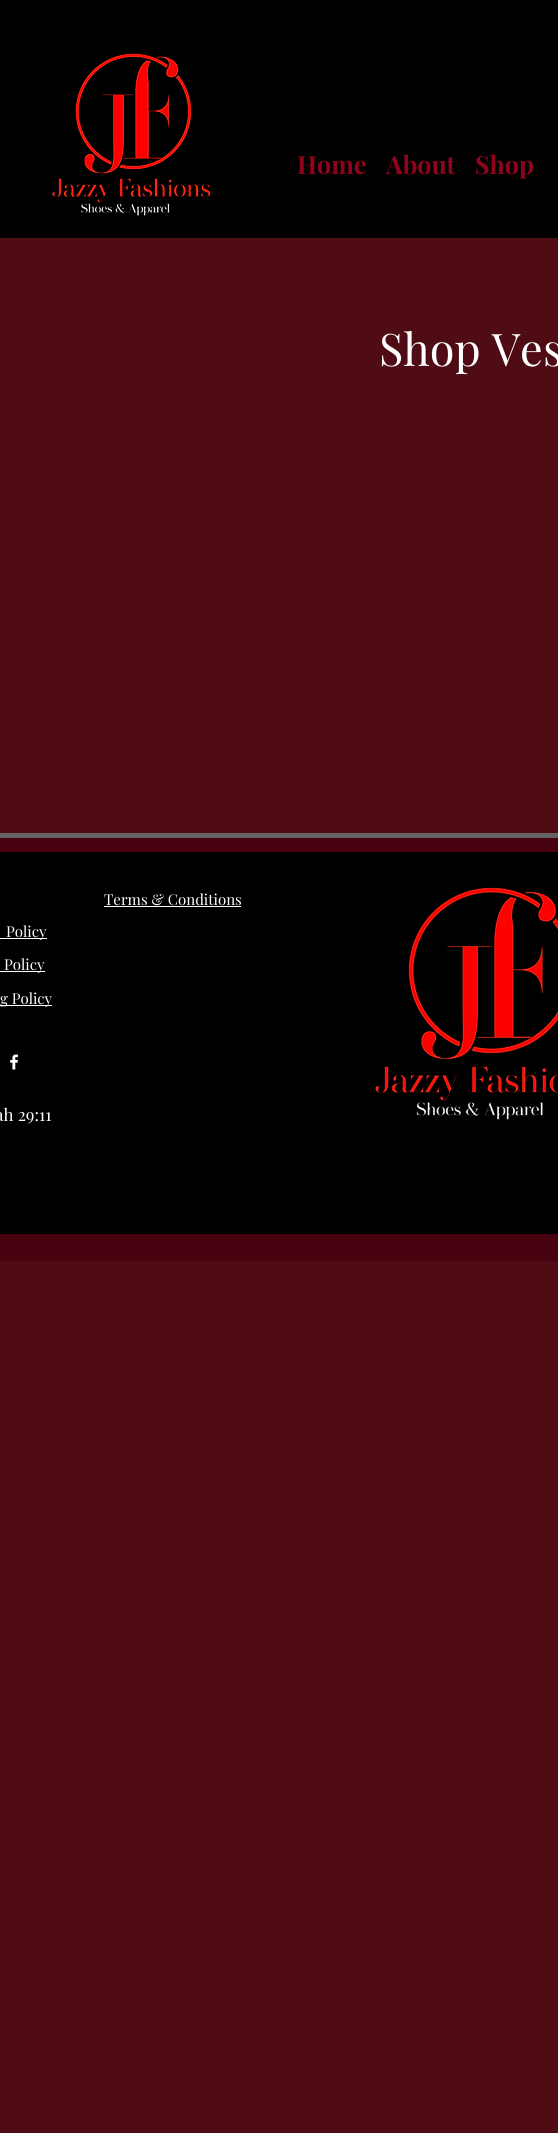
import math
import cairocffi as cairo

surface = cairo.ImageSurface(cairo.FORMAT_RGB24, 558, 2133)
ctx = cairo.Context(surface)
options = cairo.FontOptions()
options.set_hint_metrics(cairo.HINT_METRICS_OFF)
options.set_hint_style(cairo.HINT_STYLE_NONE)
ctx.set_font_options(options)
ctx.set_miter_limit(4)


def rgb(r, g, b):
    ctx.set_source_rgb(r / 255, g / 255, b / 255)


def face(family, size, italic, bold):
    ctx.select_font_face(family, cairo.FONT_SLANT_ITALIC if italic else cairo.FONT_SLANT_NORMAL, cairo.FONT_WEIGHT_BOLD if bold else cairo.FONT_WEIGHT_NORMAL)
    ctx.set_font_size(size)


def label(x, y, s):
    ctx.move_to(x, y)
    ctx.show_text(s)


def rect(x, y, w, h):
    ctx.rectangle(x, y, w, h)
    ctx.fill()


def image(path, x, y, w, h):
    ctx.save()
    ctx.set_source_surface(cairo.ImageSurface.create_from_png(path), x, y)
    ctx.rectangle(x, y, w, h)
    ctx.fill()
    ctx.restore()


rgb(80, 12, 20)
ctx.paint()
rgb(0, 0, 0)
rect(0, 0, 558, 238)
image('image0.png', 52, 53, 159, 163)
face('Playfair Display', 25, 0, 1)
rgb(145, 3, 27)
label(297, 174, 'Home')
label(386, 174, 'About')
label(475, 174, 'Shop')
face('Playfair Display', 45, 0, 0)
rgb(255, 255, 255)
label(379, 366, 'Shop Ves')
rgb(72, 1, 14)
rect(0, 838, 558, 423)
rgb(99, 99, 99)
rect(0, 833, 558, 5)
rgb(0, 0, 0)
rect(0, 852, 558, 382)
face('Playfair Display', 15, 0, 0)
rgb(255, 255, 255)
label(104, 905, 'Terms & Conditions')
rect(104, 906, 137, 1)
image('image1.png', 375, 887, 183, 233)
rect(0, 938, 47, 1)
label(6, 937, 'Policy')
rect(0, 971, 45, 1)
label(4, 970, 'Policy')
rect(0, 1005, 52, 1)
label(0, 1004, 'g Policy')
image('image2.png', 10, 1054, 9, 16)
face('Playfair Display', 17, 0, 0)
label(-5, 1121, 'ah 29:11')
surface.write_to_png('render.png')
